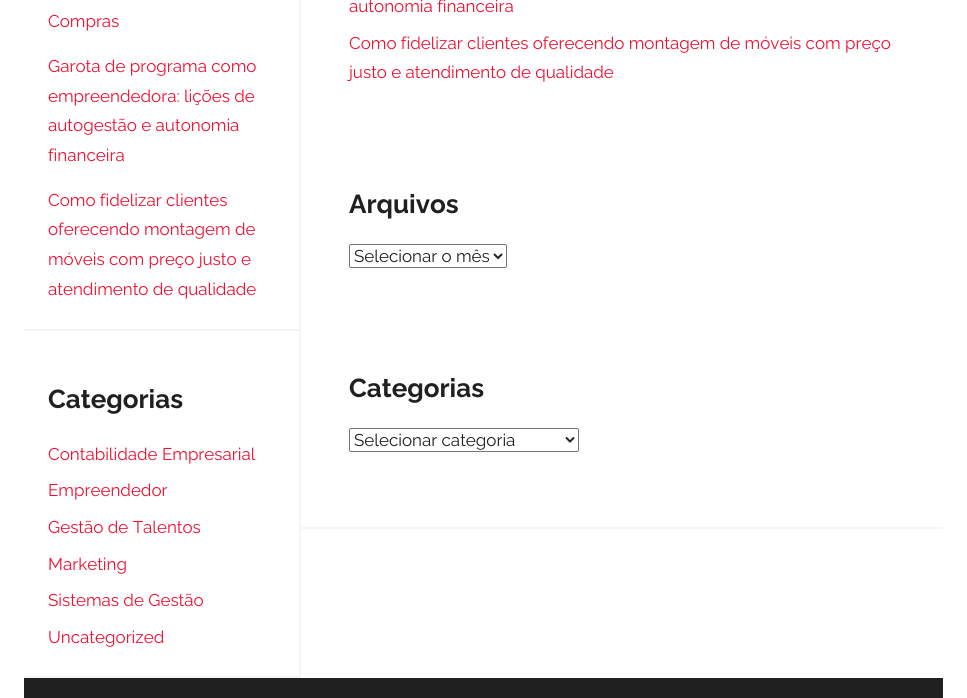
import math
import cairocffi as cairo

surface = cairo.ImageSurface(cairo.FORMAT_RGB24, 967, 698)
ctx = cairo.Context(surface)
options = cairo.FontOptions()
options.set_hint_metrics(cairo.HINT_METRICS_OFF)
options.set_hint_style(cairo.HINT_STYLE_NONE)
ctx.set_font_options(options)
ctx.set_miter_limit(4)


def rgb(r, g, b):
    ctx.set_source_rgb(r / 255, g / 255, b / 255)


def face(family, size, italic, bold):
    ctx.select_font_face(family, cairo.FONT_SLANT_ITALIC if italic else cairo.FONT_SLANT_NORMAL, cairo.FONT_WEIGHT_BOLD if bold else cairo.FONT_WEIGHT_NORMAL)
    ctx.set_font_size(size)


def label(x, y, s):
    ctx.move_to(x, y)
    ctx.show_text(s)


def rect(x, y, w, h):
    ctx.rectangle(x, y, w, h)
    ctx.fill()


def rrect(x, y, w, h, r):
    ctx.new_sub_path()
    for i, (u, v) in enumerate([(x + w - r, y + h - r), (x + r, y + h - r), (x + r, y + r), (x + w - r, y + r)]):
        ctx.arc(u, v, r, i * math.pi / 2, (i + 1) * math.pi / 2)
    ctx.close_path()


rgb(255, 255, 255)
ctx.paint()
rgb(245, 245, 245)
rect(299, 0, 2, 678)
rect(24, 329, 275, 2)
face('Raleway', 17, 0, 0)
rgb(238, 17, 51)
label(48, 27, 'Compras')
label(48, 72, 'Garota de programa como')
label(48, 102, 'empreendedora: lições de')
label(48, 131, 'autogestão e autonomia')
label(48, 161, 'financeira')
label(48, 206, 'Como fidelizar clientes')
label(48, 235, 'oferecendo montagem de')
label(48, 265, 'móveis com preço justo e')
label(48, 295, 'atendimento de qualidade')
rgb(245, 245, 245)
rect(24, 676, 275, 2)
face('Raleway', 26, 0, 1)
rgb(32, 32, 32)
label(48, 408, 'Categorias')
face('Raleway', 17, 0, 0)
rgb(238, 17, 51)
label(48, 460, 'Contabilidade Empresarial')
label(48, 496, 'Empreendedor')
label(48, 533, 'Gestão de Talentos')
label(48, 570, 'Marketing')
label(48, 606, 'Sistemas de Gestão')
label(48, 643, 'Uncategorized')
rgb(245, 245, 245)
rect(301, 527, 642, 2)
rgb(238, 17, 51)
label(349, 12, 'autonomia financeira')
label(349, 49, 'Como fidelizar clientes oferecendo montagem de móveis com preço')
label(349, 78, 'justo e atendimento de qualidade')
face('Raleway', 26, 0, 1)
rgb(32, 32, 32)
label(349, 213, 'Arquivos')
rrect(349.5, 244.5, 157, 23, 1.5)
rgb(118, 118, 118)
ctx.set_line_width(1)
ctx.stroke()
ctx.new_path()
ctx.move_to(494, 254)
ctx.line_to(498, 258)
ctx.line_to(502, 254)
rgb(32, 32, 32)
ctx.set_line_width(2)
ctx.stroke()
face('Raleway', 17, 0, 0)
label(354, 262, 'Selecionar o mês')
face('Raleway', 26, 0, 1)
label(349, 397, 'Categorias')
rrect(349.5, 428.5, 229, 23, 1.5)
rgb(118, 118, 118)
ctx.set_line_width(1)
ctx.stroke()
ctx.new_path()
ctx.move_to(566, 437.5)
ctx.line_to(570, 441.5)
ctx.line_to(574, 437.5)
rgb(32, 32, 32)
ctx.set_line_width(2)
ctx.stroke()
face('Raleway', 17, 0, 0)
label(354, 446, 'Selecionar categoria')
rect(24, 678, 919, 20)
surface.write_to_png('render.png')
